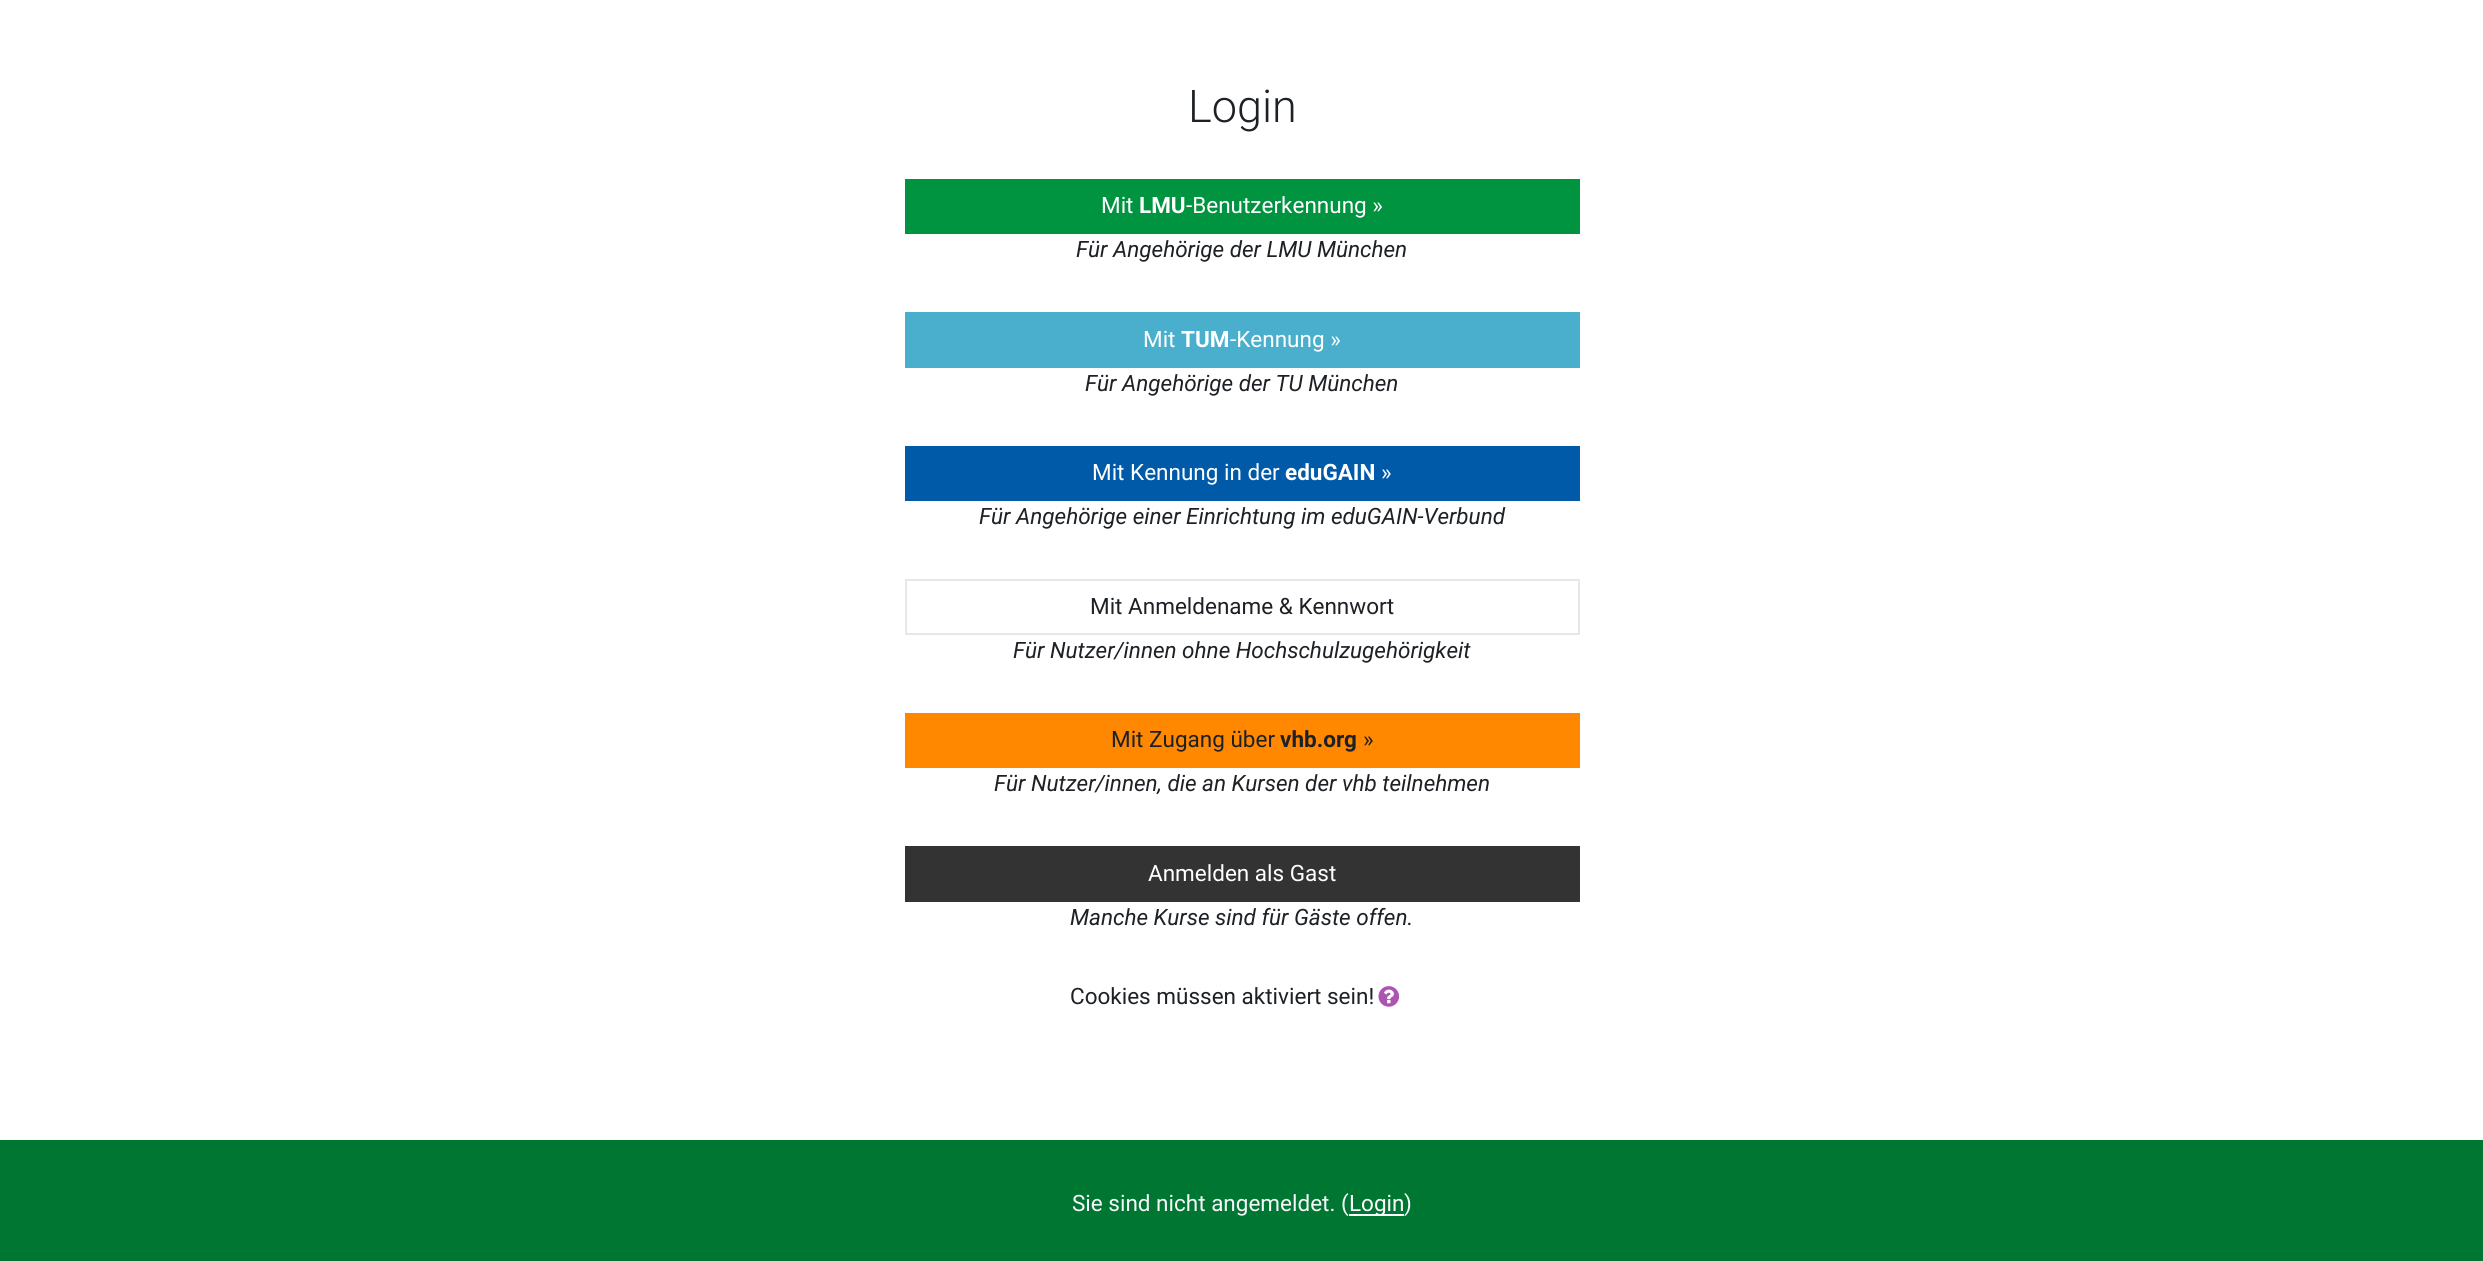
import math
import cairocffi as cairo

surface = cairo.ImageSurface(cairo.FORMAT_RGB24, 2483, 1261)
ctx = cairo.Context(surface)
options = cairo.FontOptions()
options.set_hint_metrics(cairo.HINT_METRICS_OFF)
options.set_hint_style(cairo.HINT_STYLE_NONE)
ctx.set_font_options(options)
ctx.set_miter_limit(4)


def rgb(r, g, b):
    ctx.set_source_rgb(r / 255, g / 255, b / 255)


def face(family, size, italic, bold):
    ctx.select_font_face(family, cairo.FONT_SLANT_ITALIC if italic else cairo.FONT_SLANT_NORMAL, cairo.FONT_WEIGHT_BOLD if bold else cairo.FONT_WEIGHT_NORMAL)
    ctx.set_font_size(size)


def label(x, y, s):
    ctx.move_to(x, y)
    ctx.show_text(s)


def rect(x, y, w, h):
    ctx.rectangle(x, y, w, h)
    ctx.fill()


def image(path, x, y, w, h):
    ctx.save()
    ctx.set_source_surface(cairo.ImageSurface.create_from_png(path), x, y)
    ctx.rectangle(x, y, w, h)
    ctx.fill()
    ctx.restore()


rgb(255, 255, 255)
ctx.paint()
face('Roboto Light', 45, 0, 0)
rgb(29, 33, 37)
label(1188, 122, 'Login')
rgb(0, 148, 64)
rect(905, 179, 675, 55)
face('Roboto', 22.5, 0, 0)
rgb(255, 255, 255)
label(1101, 213, 'Mit')
face('Roboto', 22.5, 0, 1)
label(1139, 213, 'LMU')
face('Roboto', 22.5, 0, 0)
label(1186, 213, '-Benutzerkennung »')
face('Roboto', 22.5, 1, 0)
rgb(29, 33, 37)
label(1076, 257, 'Für Angehörige der LMU München')
rgb(73, 175, 205)
rect(905, 312, 675, 56)
face('Roboto', 22.5, 0, 0)
rgb(255, 255, 255)
label(1143, 347, 'Mit')
face('Roboto', 22.5, 0, 1)
label(1181, 347, 'TUM')
face('Roboto', 22.5, 0, 0)
label(1230, 347, '-Kennung »')
face('Roboto', 22.5, 1, 0)
rgb(29, 33, 37)
label(1085, 391, 'Für Angehörige der TU München')
rgb(0, 90, 168)
rect(905, 446, 675, 55)
face('Roboto', 22.5, 0, 0)
rgb(255, 255, 255)
label(1092, 480, 'Mit Kennung in der')
face('Roboto', 22.5, 0, 1)
label(1285, 480, 'eduGAIN')
face('Roboto', 22.5, 0, 0)
label(1381, 480, '»')
face('Roboto', 22.5, 1, 0)
rgb(29, 33, 37)
label(979, 524, 'Für Angehörige einer Einrichtung im eduGAIN-Verbund')
ctx.rectangle(906, 580, 673, 54)
rgb(231, 231, 231)
ctx.stroke()
face('Roboto', 22.5, 0, 0)
rgb(29, 33, 37)
label(1090, 614, 'Mit Anmeldename & Kennwort')
face('Roboto', 22.5, 1, 0)
label(1013, 658, 'Für Nutzer/innen ohne Hochschulzugehörigkeit')
rgb(255, 136, 0)
rect(905, 713, 675, 55)
face('Roboto', 22.5, 0, 0)
rgb(29, 33, 37)
label(1111, 747, 'Mit Zugang über')
face('Roboto', 22.5, 0, 1)
label(1280, 747, 'vhb.org')
face('Roboto', 22.5, 0, 0)
label(1363, 747, '»')
face('Roboto', 22.5, 1, 0)
label(994, 791, 'Für Nutzer/innen, die an Kursen der vhb teilnehmen')
rgb(51, 51, 51)
rect(905, 846, 675, 56)
face('Roboto', 22.5, 0, 0)
rgb(255, 255, 255)
label(1148, 881, 'Anmelden als Gast')
face('Roboto', 22.5, 1, 0)
rgb(29, 33, 37)
label(1070, 925, 'Manche Kurse sind für Gäste offen.')
face('Roboto', 22.5, 0, 0)
label(1070, 1004, 'Cookies müssen aktiviert sein!')
image('image0.png', 1378, 986, 22, 21)
rgb(0, 118, 51)
rect(0, 1140, 2483, 121)
rgb(248, 249, 250)
label(1072, 1211, 'Sie sind nicht angemeldet. (')
rgb(255, 255, 255)
rect(1349, 1214, 55, 2)
label(1349, 1211, 'Login')
rgb(248, 249, 250)
label(1404, 1211, ')')
surface.write_to_png('render.png')
